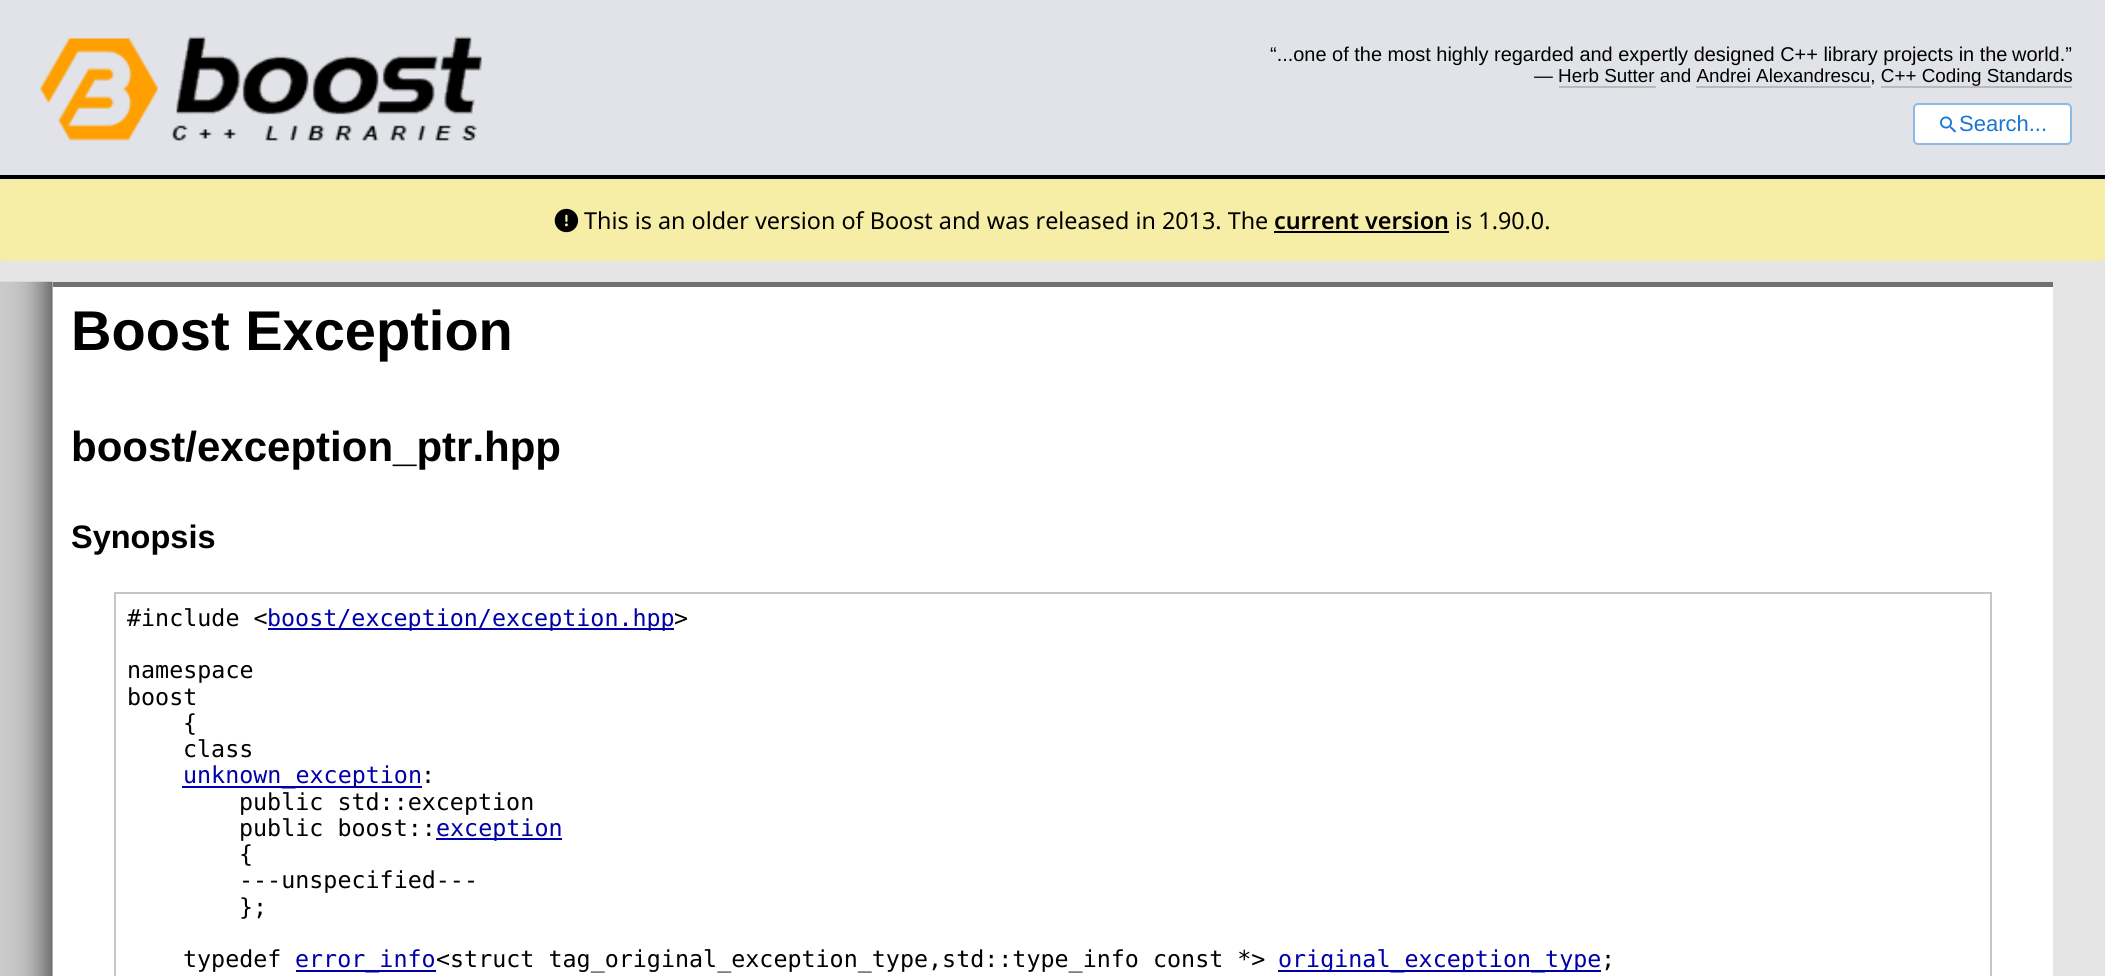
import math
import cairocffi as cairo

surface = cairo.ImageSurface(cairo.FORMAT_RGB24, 2105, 976)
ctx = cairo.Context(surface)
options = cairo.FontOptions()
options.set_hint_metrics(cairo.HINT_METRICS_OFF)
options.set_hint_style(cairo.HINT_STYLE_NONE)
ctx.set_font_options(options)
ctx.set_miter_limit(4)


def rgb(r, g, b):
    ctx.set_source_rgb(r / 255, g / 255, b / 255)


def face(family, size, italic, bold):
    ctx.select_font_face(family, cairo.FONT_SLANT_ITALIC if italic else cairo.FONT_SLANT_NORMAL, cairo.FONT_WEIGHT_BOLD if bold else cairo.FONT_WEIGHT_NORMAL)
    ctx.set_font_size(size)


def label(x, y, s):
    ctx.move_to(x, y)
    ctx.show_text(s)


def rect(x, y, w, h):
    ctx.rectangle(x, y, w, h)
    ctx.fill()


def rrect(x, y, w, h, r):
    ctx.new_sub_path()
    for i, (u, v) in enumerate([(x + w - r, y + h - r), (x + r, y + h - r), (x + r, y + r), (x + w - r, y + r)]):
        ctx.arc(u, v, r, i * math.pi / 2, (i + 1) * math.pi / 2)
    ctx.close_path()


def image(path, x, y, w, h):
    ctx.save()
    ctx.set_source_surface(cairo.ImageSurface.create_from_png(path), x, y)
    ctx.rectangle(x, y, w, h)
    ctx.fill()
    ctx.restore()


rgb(229, 229, 229)
ctx.paint()
rgb(225, 227, 232)
rect(0, 0, 2105, 175)
rgb(0, 0, 0)
rect(0, 175, 2105, 4)
image('image0.png', 39, 36, 443, 105)
face('Liberation Sans', 19.95, 0, 0)
label(1270, 61, '“...one of the most highly regarded and expertly designed C++ library projects in the')
label(2012, 61, 'world.”')
face('Liberation Sans', 18.85, 0, 0)
label(1534, 82, '— Herb Sutter and Andrei Alexandrescu, C++ Coding Standards')
rgb(187, 187, 187)
rect(1559, 86, 97, 2)
rect(1696, 86, 175, 2)
rect(1881, 86, 191, 2)
rgb(255, 255, 255)
rrect(1913, 103, 159, 42, 5)
ctx.fill()
rrect(1914, 104, 157, 40, 4)
ctx.set_source_rgba(0.098, 0.463, 0.824, 0.5)
ctx.stroke()
image('image1.png', 1940, 116, 17, 17)
face('Liberation Sans', 22, 0, 0)
rgb(25, 118, 210)
label(1959, 131, 'Search...')
rgb(246, 237, 166)
rrect(0, 179, 2105, 82, 4)
ctx.fill()
image('image2.png', 554, 208, 25, 25)
face('Noto Sans', 23.35, 0, 0)
rgb(0, 0, 0)
label(584, 229, 'This is an older version of Boost and was released in 2013. The')
face('Noto Sans SemiBold', 23.35, 0, 0)
label(1274, 229, 'current version')
rect(1274, 231, 175, 2)
face('Noto Sans', 23.35, 0, 0)
label(1455, 229, 'is 1.90.0.')
image('image3.png', 0, 281, 53, 695)
rgb(255, 255, 255)
rect(53, 287, 2000, 689)
rgb(113, 113, 113)
rect(53, 282, 2000, 5)
face('Liberation Sans', 56, 0, 1)
rgb(0, 0, 0)
label(71, 350, 'Boost Exception')
face('Liberation Sans', 42, 0, 1)
label(71, 461, 'boost/exception_ptr.hpp')
face('Liberation Sans', 32.5, 0, 1)
label(71, 548, 'Synopsis')
ctx.rectangle(115, 593, 1876, 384)
rgb(197, 197, 197)
ctx.stroke()
face('DejaVu Sans Mono', 23.35, 0, 0)
rgb(0, 0, 0)
label(127, 626, '#include <')
rgb(0, 0, 170)
rect(268, 628, 406, 2)
label(267, 626, 'boost/exception/exception.hpp')
rgb(0, 0, 0)
label(674, 626, '>')
label(127, 678, 'namespace')
label(127, 705, 'boost')
label(183, 731, '{')
label(183, 757, 'class')
rgb(0, 0, 170)
rect(182, 786, 240, 2)
label(183, 783, 'unknown_exception')
rgb(0, 0, 0)
label(421, 783, ':')
label(239, 810, 'public std::exception')
label(239, 836, 'public boost::')
rgb(0, 0, 170)
rect(436, 838, 126, 2)
label(436, 836, 'exception')
rgb(0, 0, 0)
label(239, 862, '{')
label(239, 888, '---unspecified---')
label(239, 915, '};')
label(183, 967, 'typedef')
rgb(0, 0, 170)
rect(296, 970, 140, 2)
label(295, 967, 'error_info')
rgb(0, 0, 0)
label(436, 967, '<struct tag_original_exception_type,std::type_info const *>')
rgb(0, 0, 170)
rect(1278, 970, 323, 2)
label(1278, 967, 'original_exception_type')
rgb(0, 0, 0)
label(1601, 967, ';')
surface.write_to_png('render.png')
